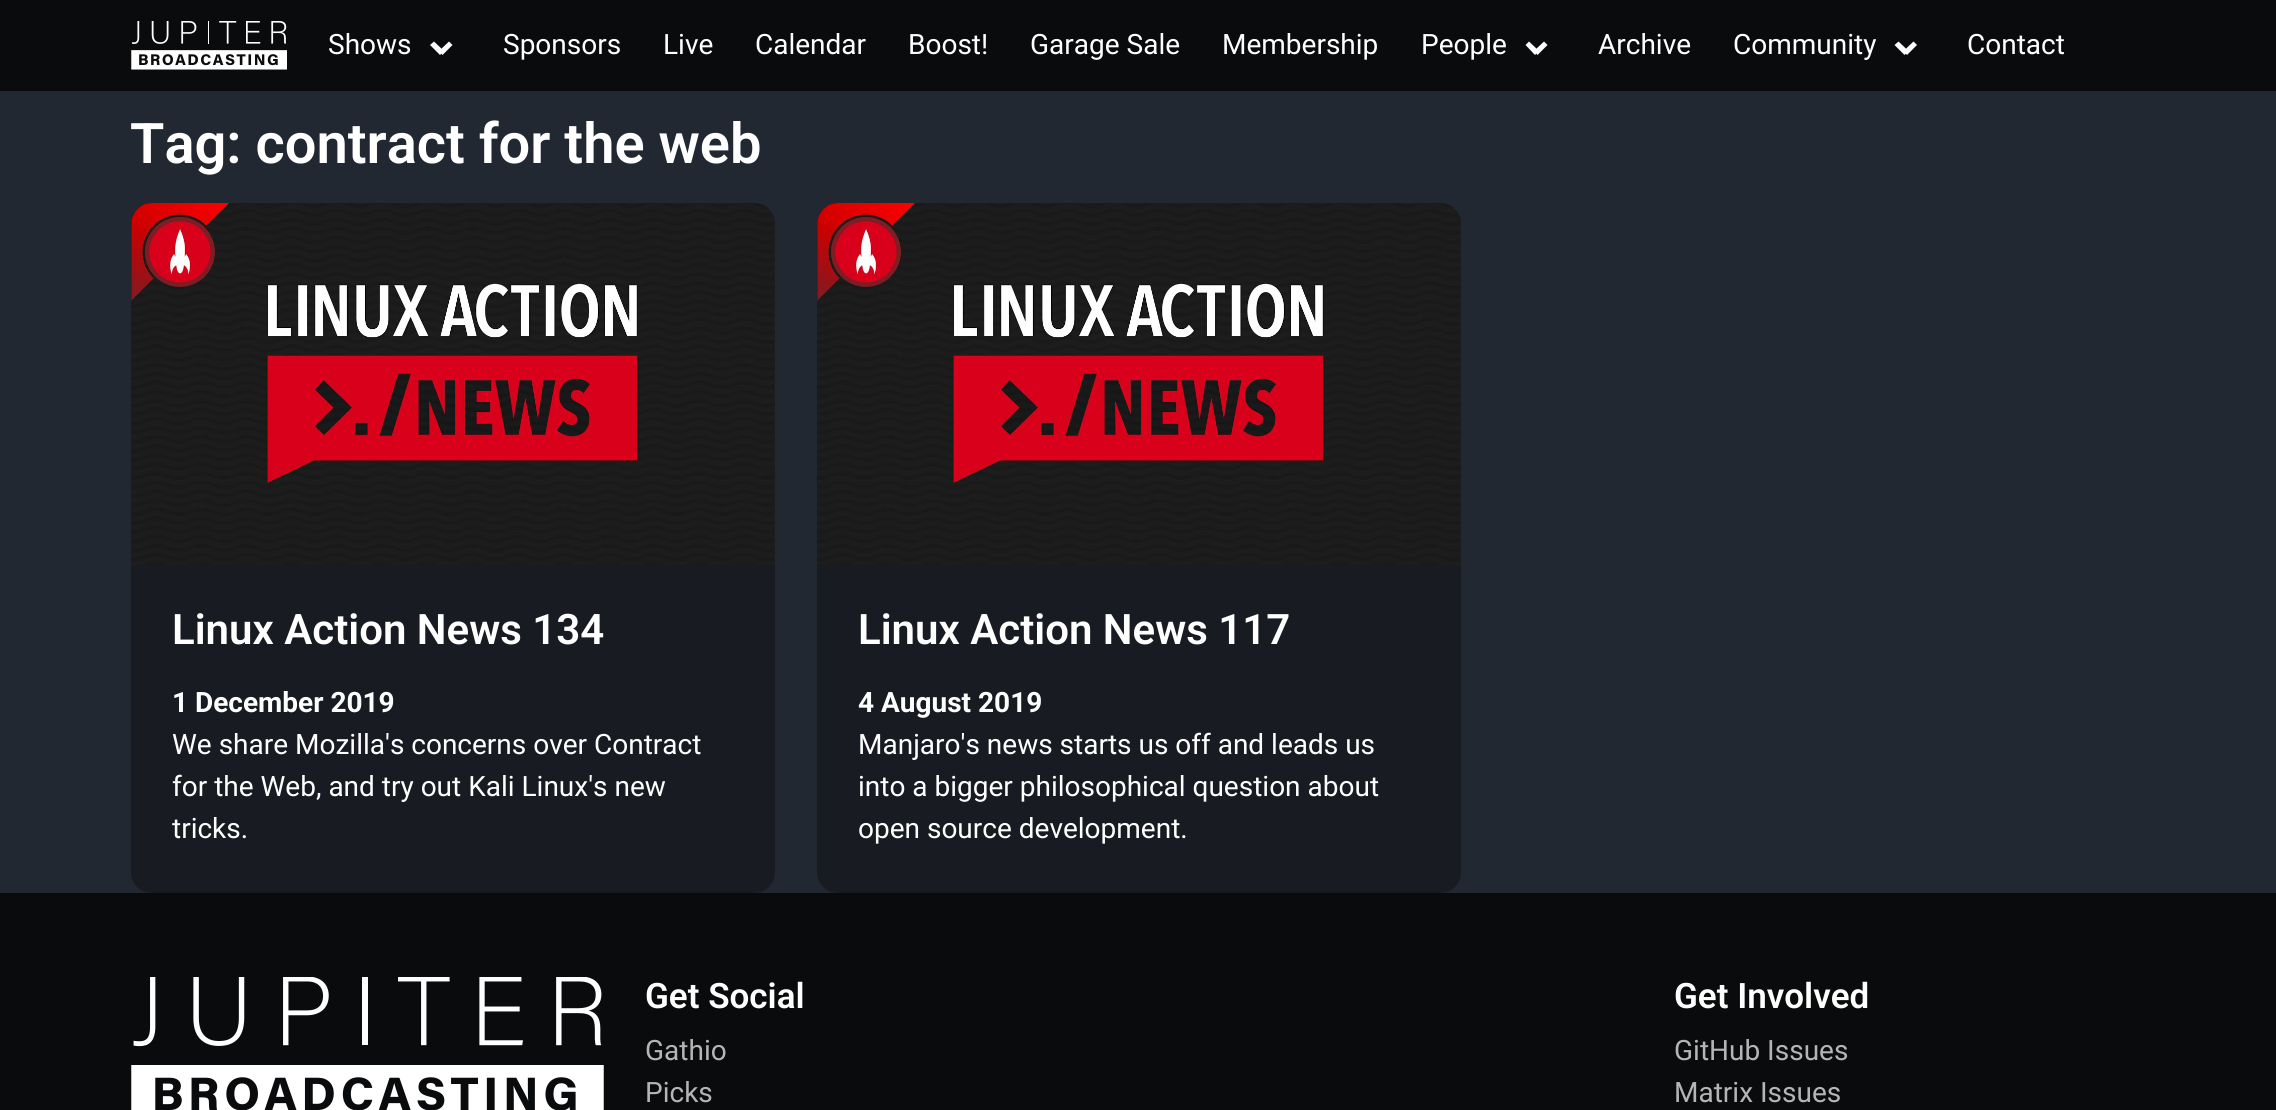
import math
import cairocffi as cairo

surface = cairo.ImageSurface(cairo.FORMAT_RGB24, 2276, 1110)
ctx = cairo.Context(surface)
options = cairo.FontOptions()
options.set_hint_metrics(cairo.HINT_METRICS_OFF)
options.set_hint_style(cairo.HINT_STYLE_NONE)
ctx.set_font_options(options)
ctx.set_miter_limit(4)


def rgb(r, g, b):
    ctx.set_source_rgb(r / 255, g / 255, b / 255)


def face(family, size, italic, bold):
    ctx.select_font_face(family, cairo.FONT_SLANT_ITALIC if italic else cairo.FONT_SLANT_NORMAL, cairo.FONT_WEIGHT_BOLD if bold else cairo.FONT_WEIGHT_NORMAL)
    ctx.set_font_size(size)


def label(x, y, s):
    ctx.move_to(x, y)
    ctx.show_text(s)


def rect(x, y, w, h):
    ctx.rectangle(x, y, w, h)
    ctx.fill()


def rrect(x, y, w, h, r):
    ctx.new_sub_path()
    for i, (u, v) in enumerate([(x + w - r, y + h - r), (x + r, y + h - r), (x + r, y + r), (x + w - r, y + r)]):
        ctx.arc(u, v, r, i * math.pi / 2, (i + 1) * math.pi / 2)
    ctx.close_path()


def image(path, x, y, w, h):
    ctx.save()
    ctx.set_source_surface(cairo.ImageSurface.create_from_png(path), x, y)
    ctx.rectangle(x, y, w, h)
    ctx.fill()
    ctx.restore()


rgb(34, 40, 49)
ctx.paint()
rgb(10, 11, 12)
rect(0, 0, 2276, 91)
image('image0.png', 131, 21, 156, 49)
face('Roboto', 28, 0, 0)
rgb(255, 255, 255)
label(328, 54, 'Shows')
ctx.new_path()
ctx.move_to(439, 51)
ctx.line_to(449, 41.5)
ctx.line_to(452.5, 45)
ctx.line_to(442.5, 55)
ctx.close_path()
ctx.fill()
ctx.new_path()
ctx.move_to(430, 45)
ctx.line_to(434, 41.5)
ctx.line_to(444, 51)
ctx.line_to(440, 55)
ctx.close_path()
ctx.fill()
label(503, 54, 'Sponsors')
label(663, 54, 'Live')
label(755, 54, 'Calendar')
label(908, 54, 'Boost!')
label(1030, 54, 'Garage Sale')
label(1222, 54, 'Membership')
label(1421, 54, 'People')
ctx.new_path()
ctx.move_to(1534, 51)
ctx.line_to(1544, 41.5)
ctx.line_to(1547.5, 45)
ctx.line_to(1537.5, 55)
ctx.close_path()
ctx.fill()
ctx.new_path()
ctx.move_to(1525.5, 45)
ctx.line_to(1529, 41.5)
ctx.line_to(1539, 51)
ctx.line_to(1535, 55)
ctx.close_path()
ctx.fill()
label(1598, 54, 'Archive')
label(1733, 54, 'Community')
ctx.new_path()
ctx.move_to(1903.5, 51)
ctx.line_to(1913.5, 41.5)
ctx.line_to(1917, 45)
ctx.line_to(1907, 55)
ctx.close_path()
ctx.fill()
ctx.new_path()
ctx.move_to(1894.5, 45)
ctx.line_to(1898.5, 41.5)
ctx.line_to(1908.5, 51)
ctx.line_to(1904.5, 55)
ctx.close_path()
ctx.fill()
label(1967, 54, 'Contact')
face('Roboto SemiBold', 56, 0, 0)
label(130, 163, 'Tag: contract for the web')
rgb(24, 28, 34)
rrect(131, 203, 644, 690, 21)
ctx.fill()
image('image1.png', 131, 203, 644, 362)
ctx.new_path()
ctx.move_to(131, 565)
ctx.line_to(775, 565)
ctx.line_to(775, 872)
ctx.curve_to(775, 883.5, 765.5, 893, 754, 893)
ctx.line_to(152, 893)
ctx.curve_to(140.5, 893, 131, 883.5, 131, 872)
ctx.close_path()
ctx.fill()
face('Roboto SemiBold', 42, 0, 0)
rgb(255, 255, 255)
label(172, 644, 'Linux Action News 134')
face('Roboto', 28, 0, 1)
label(172, 712, '1 December 2019')
face('Roboto', 28, 0, 0)
label(172, 754, 'We share Mozilla\'s concerns over Contract')
label(172, 796, 'for the Web, and try out Kali Linux\'s new')
label(172, 838, 'tricks.')
rgb(24, 28, 34)
rrect(817, 203, 644, 690, 21)
ctx.fill()
image('image2.png', 817, 203, 644, 362)
ctx.new_path()
ctx.move_to(817, 565)
ctx.line_to(1461, 565)
ctx.line_to(1461, 872)
ctx.curve_to(1461, 883.5, 1451.5, 893, 1440, 893)
ctx.line_to(838, 893)
ctx.curve_to(826.5, 893, 817, 883.5, 817, 872)
ctx.close_path()
ctx.fill()
face('Roboto SemiBold', 42, 0, 0)
rgb(255, 255, 255)
label(858, 644, 'Linux Action News 117')
face('Roboto', 28, 0, 1)
label(858, 712, '4 August 2019')
face('Roboto', 28, 0, 0)
label(858, 754, 'Manjaro\'s news starts us off and leads us')
label(858, 796, 'into a bigger philosophical question about')
label(858, 838, 'open source development.')
rgb(10, 11, 12)
rect(0, 893, 2276, 217)
image('image3.png', 131, 977, 473, 133)
face('Roboto SemiBold', 35, 0, 0)
rgb(255, 255, 255)
label(645, 1008, 'Get Social')
face('Roboto', 28, 0, 0)
rgb(181, 181, 181)
label(645, 1060, 'Gathio')
label(645, 1102, 'Picks')
face('Roboto SemiBold', 35, 0, 0)
rgb(255, 255, 255)
label(1674, 1008, 'Get Involved')
face('Roboto', 28, 0, 0)
rgb(181, 181, 181)
label(1674, 1060, 'GitHub Issues')
label(1674, 1102, 'Matrix Issues')
surface.write_to_png('render.png')
